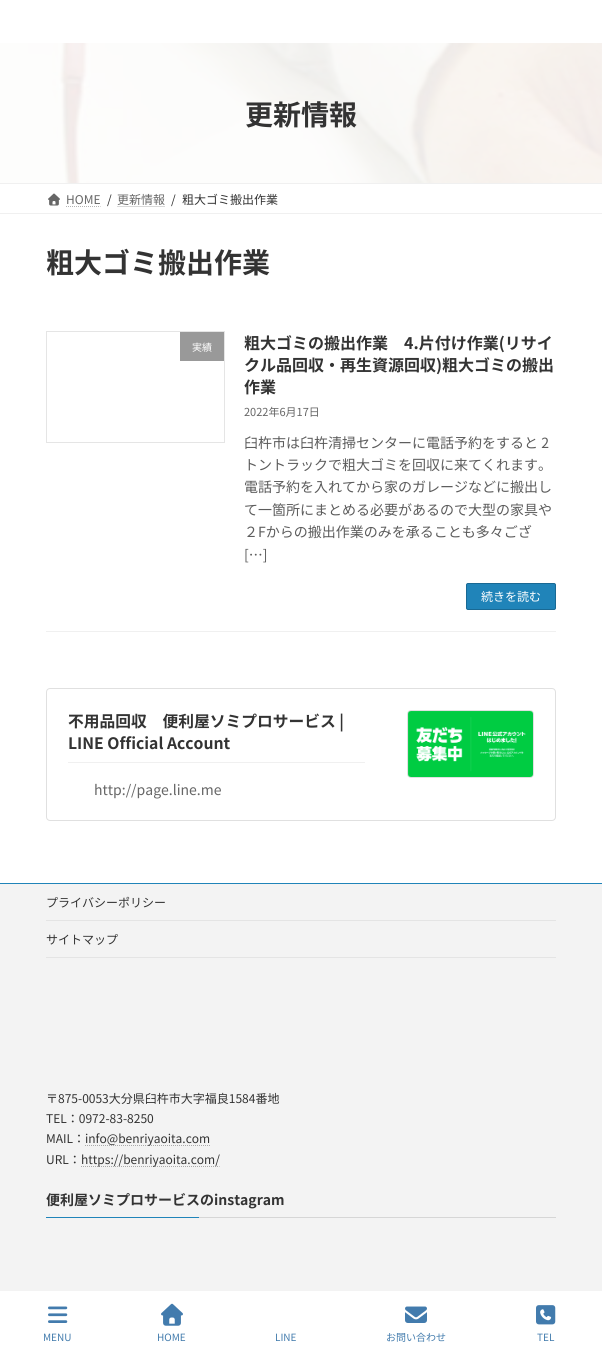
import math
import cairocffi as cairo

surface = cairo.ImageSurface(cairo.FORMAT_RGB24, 602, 1353)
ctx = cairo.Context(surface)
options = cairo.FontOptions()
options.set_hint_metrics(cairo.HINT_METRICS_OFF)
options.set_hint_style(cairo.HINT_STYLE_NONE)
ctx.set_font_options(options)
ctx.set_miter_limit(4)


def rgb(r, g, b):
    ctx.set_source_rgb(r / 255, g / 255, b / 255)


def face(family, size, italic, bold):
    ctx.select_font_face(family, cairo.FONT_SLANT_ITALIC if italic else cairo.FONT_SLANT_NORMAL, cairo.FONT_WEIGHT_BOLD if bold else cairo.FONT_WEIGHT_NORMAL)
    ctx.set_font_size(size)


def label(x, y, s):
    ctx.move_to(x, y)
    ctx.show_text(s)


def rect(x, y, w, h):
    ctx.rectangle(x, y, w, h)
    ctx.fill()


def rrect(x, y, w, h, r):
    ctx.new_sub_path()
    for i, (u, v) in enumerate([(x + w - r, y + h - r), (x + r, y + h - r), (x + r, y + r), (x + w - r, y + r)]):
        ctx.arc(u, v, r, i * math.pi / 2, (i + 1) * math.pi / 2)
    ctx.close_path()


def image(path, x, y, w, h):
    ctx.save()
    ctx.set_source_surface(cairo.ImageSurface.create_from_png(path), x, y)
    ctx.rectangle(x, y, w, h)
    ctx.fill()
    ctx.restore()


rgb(255, 255, 255)
ctx.paint()
image('image0.png', 0, 43, 602, 140)
face('Noto Sans JP', 28, 0, 1)
rgb(51, 51, 51)
label(245, 125, '更新情報')
rgb(240, 240, 240)
rect(0, 183, 602, 1)
rect(0, 213, 602, 1)
image('image1.png', 48, 193, 12, 13)
face('Noto Sans JP', 12, 0, 0)
rgb(102, 102, 102)
label(66, 204, 'HOME')
ctx.new_path()
ctx.move_to(66, 206.5)
ctx.line_to(100.5, 206.5)
rgb(179, 179, 179)
ctx.set_line_width(1)
ctx.set_dash([1, 1])
ctx.stroke()
rgb(51, 51, 51)
label(107, 204, '/')
rgb(102, 102, 102)
label(117, 204, '更新情報')
ctx.new_path()
ctx.move_to(117.5, 206.5)
ctx.line_to(165.5, 206.5)
rgb(179, 179, 179)
ctx.stroke()
rgb(51, 51, 51)
label(171, 204, '/')
label(182, 204, '粗大ゴミ搬出作業')
face('Noto Sans JP', 28, 0, 1)
label(46, 273, '粗大ゴミ搬出作業')
rgb(240, 240, 240)
rect(46, 631, 510, 1)
ctx.rectangle(46.5, 331.5, 178, 111)
rgb(229, 229, 229)
ctx.set_dash([])
ctx.stroke()
rgb(153, 153, 153)
rect(180, 332, 44, 29)
face('Noto Sans JP', 10, 0, 0)
rgb(255, 255, 255)
label(192, 351, '実績')
face('Noto Sans JP', 16, 0, 1)
rgb(51, 51, 51)
label(244, 349, '粗大ゴミの搬出作業　4.片付け作業(リサイ')
label(244, 371, 'クル品回収・再生資源回収)粗大ゴミの搬出')
label(244, 393, '作業')
face('Noto Sans JP', 11, 0, 0)
rgb(102, 102, 102)
label(244, 416, '2022年6月17日')
face('Noto Sans JP', 14, 0, 0)
rgb(92, 92, 92)
label(244, 448, '臼杵市は臼杵清掃センターに電話予約をすると 2')
label(244, 470, 'トントラックで粗大ゴミを回収に来てくれます。')
label(244, 492, '電話予約を入れてから家のガレージなどに搬出し')
label(244, 515, 'て一箇所にまとめる必要があるので大型の家具や')
label(244, 537, '２Fからの搬出作業のみを承ることも多々ござ')
label(244, 560, '[…]')
rgb(32, 132, 185)
rrect(466.5, 583.5, 89, 26, 1.5)
ctx.fill_preserve()
rgb(25, 105, 148)
ctx.stroke()
face('Noto Sans JP', 12, 0, 0)
rgb(255, 255, 255)
label(481, 601, '続きを読む')
rrect(46.5, 688.5, 509, 132, 3.5)
rgb(224, 224, 224)
ctx.stroke()
rgb(240, 240, 240)
rect(68, 762, 297, 1)
face('Noto Sans JP', 15.75, 0, 1)
rgb(51, 51, 51)
label(68, 727, '不用品回収　便利屋ソミプロサービス |')
label(68, 749, 'LINE Official Account')
face('Noto Sans JP', 14, 0, 0)
rgb(102, 102, 102)
label(94, 795, 'http://page.line.me')
rrect(407.5, 710.5, 126, 67, 3.5)
rgb(224, 224, 224)
ctx.stroke()
image('image2.png', 408, 711, 125, 66)
rgb(243, 243, 243)
rect(0, 884, 602, 407)
rgb(32, 132, 185)
rect(0, 883, 602, 1)
rgb(228, 228, 228)
rect(46, 920, 510, 1)
face('Noto Sans JP', 12, 0, 0)
rgb(51, 51, 51)
label(46, 907, 'プライバシーポリシー')
rgb(228, 228, 228)
rect(46, 957, 510, 1)
rgb(51, 51, 51)
label(46, 944, 'サイトマップ')
label(46, 1103, '〒875-0053大分県臼杵市大字福良1584番地')
label(46, 1123, 'TEL：0972-83-8250')
label(46, 1143, 'MAIL：')
ctx.new_path()
ctx.move_to(85, 1145.5)
ctx.line_to(210.5, 1145.5)
rgb(170, 170, 170)
ctx.set_dash([1, 1])
ctx.stroke()
rgb(51, 51, 51)
label(85, 1143, 'info@benriyaoita.com')
label(46, 1164, 'URL：')
ctx.new_path()
ctx.move_to(81, 1166.5)
ctx.line_to(219.5, 1166.5)
rgb(170, 170, 170)
ctx.stroke()
rgb(51, 51, 51)
label(81, 1164, 'https://benriyaoita.com/')
rgb(214, 214, 214)
rect(199, 1217, 357, 1)
face('Noto Sans JP', 14, 0, 1)
rgb(51, 51, 51)
label(46, 1205, '便利屋ソミプロサービスのinstagram')
rgb(32, 132, 185)
rect(46, 1217, 153, 1)
image('image3.png', 48, 1306, 20, 17)
face('Noto Sans JP', 10, 0, 0)
rgb(67, 124, 173)
label(43, 1341, 'MENU')
image('image4.png', 161, 1303, 22, 23)
label(157, 1341, 'HOME')
label(275, 1341, 'LINE')
image('image5.png', 405, 1306, 22, 17)
label(386, 1341, 'お問い合わせ')
image('image6.png', 536, 1305, 20, 20)
label(537, 1341, 'TEL')
surface.write_to_png('render.png')
